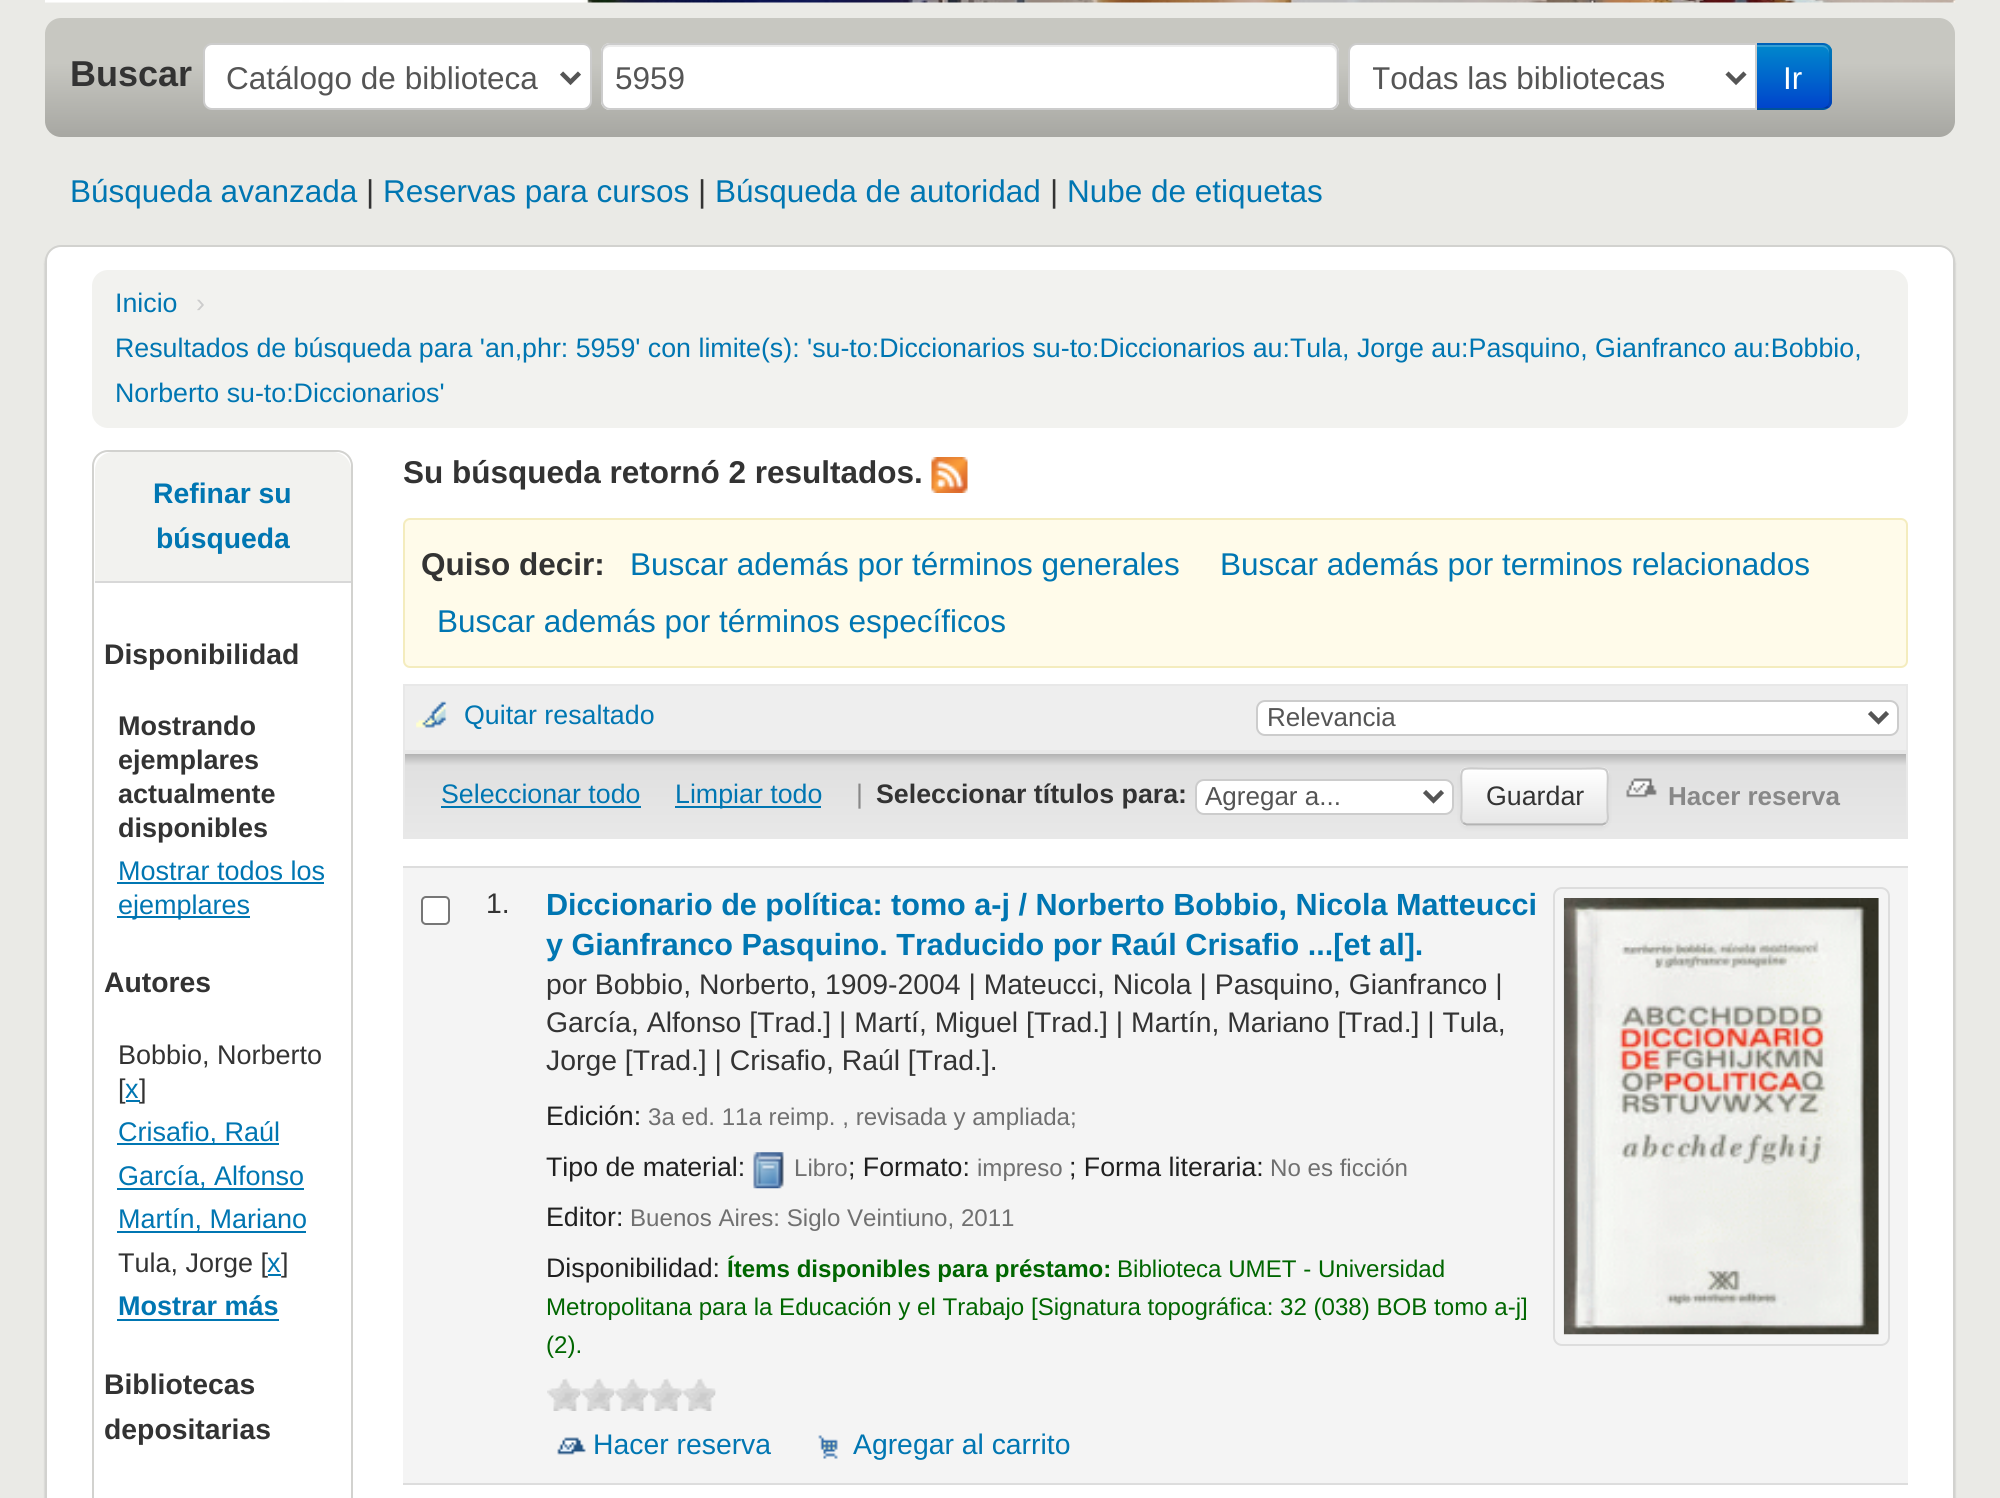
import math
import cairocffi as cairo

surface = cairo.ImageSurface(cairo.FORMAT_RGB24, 2000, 1498)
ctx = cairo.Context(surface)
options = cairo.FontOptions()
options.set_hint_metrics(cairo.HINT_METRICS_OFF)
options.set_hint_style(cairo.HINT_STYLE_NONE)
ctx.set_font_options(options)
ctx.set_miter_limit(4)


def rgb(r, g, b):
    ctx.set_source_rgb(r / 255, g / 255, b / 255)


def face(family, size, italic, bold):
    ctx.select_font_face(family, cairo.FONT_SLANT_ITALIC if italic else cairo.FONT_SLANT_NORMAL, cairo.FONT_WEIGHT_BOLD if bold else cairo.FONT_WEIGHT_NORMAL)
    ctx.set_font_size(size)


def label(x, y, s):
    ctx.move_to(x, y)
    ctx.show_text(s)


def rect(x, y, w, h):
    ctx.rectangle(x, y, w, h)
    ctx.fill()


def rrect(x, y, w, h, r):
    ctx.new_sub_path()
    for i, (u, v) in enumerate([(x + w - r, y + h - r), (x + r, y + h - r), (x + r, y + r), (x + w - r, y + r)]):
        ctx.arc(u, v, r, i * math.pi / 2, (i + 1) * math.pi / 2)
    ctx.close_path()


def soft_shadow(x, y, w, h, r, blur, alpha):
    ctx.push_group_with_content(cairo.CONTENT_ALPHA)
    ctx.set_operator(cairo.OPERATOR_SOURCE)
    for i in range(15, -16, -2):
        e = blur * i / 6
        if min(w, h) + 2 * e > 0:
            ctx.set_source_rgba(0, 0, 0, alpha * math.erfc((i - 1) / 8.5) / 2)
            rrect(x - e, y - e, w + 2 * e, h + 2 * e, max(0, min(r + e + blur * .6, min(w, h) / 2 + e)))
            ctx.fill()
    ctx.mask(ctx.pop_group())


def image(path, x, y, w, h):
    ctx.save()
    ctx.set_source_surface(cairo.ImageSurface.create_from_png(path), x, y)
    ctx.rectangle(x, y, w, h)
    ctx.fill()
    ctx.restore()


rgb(234, 234, 230)
ctx.paint()
image('image0.png', 45, 0, 1911, 3)
gradient = cairo.LinearGradient(1000, 18, 1000, 137)
gradient.add_color_stop_rgba(0.38, 0.78, 0.78, 0.757, 1)
gradient.add_color_stop_rgba(1, 0.655, 0.655, 0.635, 1)
ctx.set_source(gradient)
rrect(45, 18, 1910, 119, 16)
ctx.fill()
face('Liberation Sans', 36, 0, 1)
rgb(51, 51, 51)
label(70, 86, 'Buscar')
rgb(255, 255, 255)
rrect(204, 44, 387, 65, 8)
ctx.fill_preserve()
rgb(204, 204, 204)
ctx.stroke()
ctx.new_path()
ctx.move_to(561.5, 73)
ctx.line_to(570.5, 82)
ctx.line_to(579.5, 73)
rgb(85, 85, 85)
ctx.set_line_width(4.5)
ctx.stroke()
face('Liberation Sans', 31.5, 0, 0)
label(226, 89, 'Catálogo de biblioteca')
rgb(255, 255, 255)
rrect(601, 43, 738, 67, 9)
ctx.fill()
rgb(236, 236, 236)
ctx.new_path()
ctx.move_to(610, 47)
ctx.line_to(1330, 47)
ctx.curve_to(1333, 47, 1336, 50, 1336, 54)
ctx.line_to(1336, 105)
ctx.curve_to(1337, 104, 1337, 102, 1337, 101)
ctx.line_to(1337, 52)
ctx.curve_to(1337, 48, 1334, 45, 1330, 45)
ctx.line_to(610, 45)
ctx.curve_to(606, 45, 603, 48, 603, 52)
ctx.line_to(603, 54)
ctx.curve_to(603, 50, 606, 47, 610, 47)
ctx.close_path()
ctx.fill()
rrect(602, 44, 736, 65, 8)
rgb(204, 204, 204)
ctx.set_line_width(2)
ctx.stroke()
rgb(85, 85, 85)
label(615, 89, '5959')
rgb(0, 109, 204)
ctx.new_path()
ctx.move_to(1755, 43)
ctx.line_to(1823, 43)
ctx.curve_to(1828, 43, 1832, 47, 1832, 52)
ctx.line_to(1832, 101)
ctx.curve_to(1832, 106, 1828, 110, 1823, 110)
ctx.line_to(1755, 110)
ctx.close_path()
ctx.fill()
ctx.save()
ctx.new_path()
ctx.move_to(1755, 43)
ctx.line_to(1823, 43)
ctx.curve_to(1828, 43, 1832, 47, 1832, 52)
ctx.line_to(1832, 101)
ctx.curve_to(1832, 106, 1828, 110, 1823, 110)
ctx.line_to(1755, 110)
ctx.close_path()
ctx.clip()
gradient = cairo.LinearGradient(1793, 45, 1793, 108)
gradient.add_color_stop_rgba(0, 0, 0.533, 0.8, 1)
gradient.add_color_stop_rgba(1, 0, 0.267, 0.8, 1)
ctx.set_source(gradient)
rect(1757, 45, 75, 63)
ctx.restore()
ctx.set_source_rgba(1, 1, 1, 0.2)
ctx.new_path()
ctx.move_to(1757, 47)
ctx.line_to(1822, 47)
ctx.curve_to(1826, 47, 1829, 50, 1829, 54)
ctx.line_to(1829, 52)
ctx.curve_to(1829, 48, 1826, 45, 1822, 45)
ctx.line_to(1757, 45)
ctx.close_path()
ctx.fill()
ctx.set_source_rgba(0, 0, 0, 0.1)
ctx.new_path()
ctx.move_to(1829, 46)
ctx.curve_to(1827, 44, 1824, 43, 1822, 43)
ctx.line_to(1755, 43)
ctx.line_to(1757, 45)
ctx.line_to(1822, 45)
ctx.curve_to(1824, 45, 1826, 46, 1827, 47)
ctx.close_path()
ctx.fill()
ctx.new_path()
ctx.move_to(1829, 46)
ctx.line_to(1832, 49)
ctx.line_to(1832, 104)
ctx.line_to(1829, 107)
ctx.line_to(1827, 106)
ctx.curve_to(1828, 105, 1829, 103, 1829, 101)
ctx.line_to(1829, 52)
ctx.curve_to(1829, 50, 1828, 48, 1827, 47)
ctx.close_path()
ctx.fill()
ctx.set_source_rgba(0, 0, 0, 0.25)
ctx.new_path()
ctx.move_to(1829, 107)
ctx.curve_to(1827, 109, 1824, 110, 1822, 110)
ctx.line_to(1755, 110)
ctx.line_to(1757, 108)
ctx.line_to(1822, 108)
ctx.curve_to(1824, 108, 1826, 107, 1827, 106)
ctx.close_path()
ctx.fill()
rgb(255, 255, 255)
ctx.new_path()
ctx.move_to(1357, 44)
ctx.line_to(1756, 44)
ctx.line_to(1756, 109)
ctx.line_to(1357, 109)
ctx.curve_to(1352.5, 109, 1349, 105.5, 1349, 101)
ctx.line_to(1349, 52)
ctx.curve_to(1349, 47.5, 1352.5, 44, 1357, 44)
ctx.close_path()
ctx.fill_preserve()
rgb(204, 204, 204)
ctx.stroke()
ctx.new_path()
ctx.move_to(1727, 73)
ctx.line_to(1736, 82)
ctx.line_to(1745, 73)
rgb(85, 85, 85)
ctx.set_line_width(4.5)
ctx.stroke()
ctx.save()
ctx.rectangle(1373, 56, 333, 41)
ctx.clip()
label(1371, 89, 'Todas las bibliotecas')
ctx.restore()
rgb(255, 255, 255)
label(1783, 89, 'Ir')
rgb(0, 118, 178)
label(70, 202, 'Búsqueda avanzada')
rgb(51, 51, 51)
label(366, 202, '|')
rgb(0, 118, 178)
label(383, 202, 'Reservas para cursos')
rgb(51, 51, 51)
label(698, 202, '|')
rgb(0, 118, 178)
label(715, 202, 'Búsqueda de autoridad')
rgb(51, 51, 51)
label(1050, 202, '|')
rgb(0, 118, 178)
label(1067, 202, 'Nube de etiquetas')
rgb(0, 0, 0)
soft_shadow(45, 248, 1910, 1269, 16, 1, 0.2)
rgb(255, 255, 255)
rrect(46, 246, 1908, 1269, 15)
ctx.fill_preserve()
rgb(210, 210, 207)
ctx.set_line_width(2)
ctx.stroke()
rgb(242, 242, 239)
rrect(92, 270, 1816, 158, 16)
ctx.fill()
face('Liberation Sans', 26.78, 0, 0)
rgb(0, 118, 178)
label(115, 312, 'Inicio')
rgb(204, 204, 204)
label(196, 312, '›')
rgb(0, 118, 178)
label(115, 357, 'Resultados de búsqueda para \'an,phr: 5959\' con limite(s): \'su-to:Diccionarios su-to:Diccionarios au:Tula, Jorge au:Pasquino, Gianfranco au:Bobbio,')
label(115, 402, 'Norberto su-to:Diccionarios\'')
rrect(93, 451, 259, 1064, 15)
rgb(210, 210, 207)
ctx.stroke()
rgb(242, 242, 239)
ctx.new_path()
ctx.move_to(113, 452)
ctx.line_to(333, 452)
ctx.curve_to(343, 452, 351, 460, 351, 470)
ctx.line_to(351, 583)
ctx.line_to(95, 583)
ctx.line_to(95, 470)
ctx.curve_to(95, 460, 103, 452, 113, 452)
ctx.close_path()
ctx.fill()
rgb(216, 216, 216)
rect(95, 581, 256, 2)
face('Liberation Sans', 28.35, 0, 1)
rgb(0, 118, 178)
label(153, 503, 'Refinar su')
label(156, 548, 'búsqueda')
rgb(51, 51, 51)
label(104, 664, 'Disponibilidad')
face('Liberation Sans', 27, 0, 1)
label(118, 735, 'Mostrando')
label(118, 769, 'ejemplares')
label(118, 803, 'actualmente')
label(118, 837, 'disponibles')
face('Liberation Sans', 27, 0, 0)
rgb(0, 118, 178)
label(118, 880, 'Mostrar todos los')
rect(117, 882, 207, 2)
rect(117, 916, 133, 2)
label(118, 914, 'ejemplares')
face('Liberation Sans', 28.35, 0, 1)
rgb(51, 51, 51)
label(104, 992, 'Autores')
face('Liberation Sans', 27, 0, 0)
label(118, 1064, 'Bobbio, Norberto')
label(118, 1098, '[')
rgb(0, 118, 178)
label(125, 1098, 'x')
rect(126, 1100, 14, 2)
rgb(51, 51, 51)
label(139, 1098, ']')
rgb(0, 118, 178)
rect(117, 1143, 162, 2)
label(118, 1141, 'Crisafio, Raúl')
rect(117, 1188, 187, 2)
label(118, 1185, 'García, Alfonso')
rect(117, 1231, 189, 2)
label(118, 1228, 'Martín, Mariano')
rgb(51, 51, 51)
label(118, 1272, 'Tula, Jorge [')
rgb(0, 118, 178)
label(267, 1272, 'x')
rect(268, 1274, 13, 2)
rgb(51, 51, 51)
label(281, 1272, ']')
face('Liberation Sans', 27, 0, 1)
rgb(0, 118, 178)
label(118, 1315, 'Mostrar más')
rect(117, 1319, 162, 2)
face('Liberation Sans', 28.35, 0, 1)
rgb(51, 51, 51)
label(104, 1394, 'Bibliotecas')
label(104, 1439, 'depositarias')
face('Liberation Sans', 31.5, 0, 1)
label(403, 483, 'Su búsqueda retornó 2 resultados.')
image('image1.png', 931, 457, 37, 36)
rgb(255, 251, 234)
rrect(404, 519, 1503, 148, 6)
ctx.fill_preserve()
rgb(244, 236, 190)
ctx.stroke()
rgb(51, 51, 51)
label(421, 575, 'Quiso decir:')
face('Liberation Sans', 31.5, 0, 0)
rgb(0, 118, 178)
label(630, 575, 'Buscar además por términos generales')
label(1220, 575, 'Buscar además por terminos relacionados')
label(437, 632, 'Buscar además por términos específicos')
rgb(238, 238, 238)
ctx.rectangle(404, 685, 1503, 66)
ctx.fill_preserve()
rgb(232, 232, 232)
ctx.stroke()
image('image2.png', 416, 701, 31, 27)
face('Liberation Sans', 26.78, 0, 0)
rgb(0, 118, 178)
label(464, 724, 'Quitar resaltado')
rgb(255, 255, 255)
rrect(1257, 701, 641, 34, 8)
ctx.fill_preserve()
rgb(204, 204, 204)
ctx.stroke()
ctx.new_path()
ctx.move_to(1869.5, 712.5)
ctx.line_to(1878.5, 721.5)
ctx.line_to(1887.5, 712.5)
rgb(85, 85, 85)
ctx.set_line_width(4.5)
ctx.stroke()
face('Liberation Sans', 26, 0, 0)
label(1267, 726, 'Relevancia')
gradient = cairo.LinearGradient(1155, 754, 1155, 837)
gradient.add_color_stop_rgba(0, 0.698, 0.698, 0.698, 1)
gradient.add_color_stop_rgba(0.14, 0.878, 0.878, 0.878, 1)
gradient.add_color_stop_rgba(1, 0.91, 0.91, 0.91, 1)
ctx.set_source(gradient)
rect(405, 754, 1501, 83)
ctx.rectangle(404, 753, 1503, 85)
rgb(232, 232, 232)
ctx.set_line_width(2)
ctx.stroke()
face('Liberation Sans', 26.78, 0, 0)
rgb(0, 118, 178)
label(441, 803, 'Seleccionar todo')
rect(441, 806, 200, 2)
rect(675, 806, 146, 2)
label(675, 803, 'Limpiar todo')
rgb(136, 136, 136)
label(856, 803, '|')
face('Liberation Sans', 26.78, 0, 1)
rgb(51, 51, 51)
label(876, 803, 'Seleccionar títulos para:')
rgb(255, 255, 255)
rrect(1196, 780, 257, 34, 8)
ctx.fill_preserve()
rgb(204, 204, 204)
ctx.stroke()
ctx.new_path()
ctx.move_to(1424.5, 791.5)
ctx.line_to(1433.5, 800.5)
ctx.line_to(1442.5, 791.5)
rgb(85, 85, 85)
ctx.set_line_width(4.5)
ctx.stroke()
face('Liberation Sans', 26, 0, 0)
label(1205, 805, 'Agregar a...')
rgb(0, 0, 0)
soft_shadow(1460, 770, 149, 58, 7, 2, 0.05)
rgb(245, 245, 245)
rrect(1460, 767, 149, 59, 7)
ctx.fill()
ctx.save()
rrect(1460, 767, 149, 59, 7)
ctx.clip()
gradient = cairo.LinearGradient(1535, 770, 1535, 824)
gradient.add_color_stop_rgba(0, 1, 1, 1, 1)
gradient.add_color_stop_rgba(1, 0.902, 0.902, 0.902, 1)
ctx.set_source(gradient)
rect(1460, 770, 149, 54)
ctx.restore()
ctx.set_source_rgba(1, 1, 1, 0.2)
ctx.new_path()
ctx.move_to(1467, 772)
ctx.line_to(1602, 772)
ctx.curve_to(1608, 772, 1606, 781, 1606, 784)
ctx.line_to(1606, 822)
ctx.curve_to(1607, 821, 1607, 820, 1607, 819)
ctx.line_to(1607, 775)
ctx.curve_to(1607, 772, 1605, 770, 1602, 770)
ctx.line_to(1468, 770)
ctx.curve_to(1466, 770, 1464, 772, 1463, 774)
ctx.curve_to(1464, 773, 1466, 772, 1467, 772)
ctx.close_path()
ctx.fill()
ctx.new_path()
ctx.move_to(1606, 823)
ctx.line_to(1602.5, 824.5)
ctx.line_to(1466.5, 824.5)
ctx.line_to(1463, 823)
rgb(179, 179, 179)
ctx.set_line_width(2.2)
ctx.stroke()
ctx.new_path()
ctx.move_to(1463, 823)
ctx.curve_to(1460, 820, 1461.5, 814.5, 1461.5, 811.5)
ctx.line_to(1461.5, 796.5)
ctx.curve_to(1461.5, 763.5, 1456, 768.5, 1489.5, 768.5)
ctx.line_to(1579.5, 768.5)
ctx.curve_to(1613, 768.5, 1607.5, 763.5, 1607.5, 796.5)
ctx.line_to(1607.5, 811.5)
ctx.curve_to(1607.5, 814.5, 1609, 820, 1606, 823)
rgb(204, 204, 204)
ctx.stroke()
face('Liberation Sans', 26.78, 0, 0)
rgb(51, 51, 51)
label(1486, 805, 'Guardar')
image('image3.png', 1626, 778, 31, 20)
face('Liberation Sans', 26, 0, 1)
rgb(136, 136, 136)
label(1668, 805, 'Hacer reserva')
rgb(244, 244, 244)
rect(403, 868, 1505, 615)
rgb(255, 255, 255)
rrect(422, 897, 27, 27, 4)
ctx.fill_preserve()
rgb(118, 118, 118)
ctx.set_line_width(2)
ctx.stroke()
face('Liberation Sans', 28.35, 0, 0)
rgb(51, 51, 51)
label(486, 913, '1.')
rgb(221, 221, 221)
rect(403, 866, 1505, 2)
face('Liberation Sans', 30.6, 0, 1)
rgb(0, 118, 178)
label(546, 915, 'Diccionario de política:')
label(891, 915, 'tomo a-j / Norberto Bobbio, Nicola Matteucci')
rrect(1554, 888, 335, 457, 8)
rgb(221, 221, 221)
ctx.stroke()
image('image4.png', 1563, 898, 316, 437)
rgb(0, 118, 178)
label(546, 955, 'y Gianfranco Pasquino. Traducido por Raúl Crisafio ...[et al].')
face('Liberation Sans', 28.35, 0, 0)
rgb(51, 51, 51)
label(546, 994, 'por Bobbio, Norberto, 1909-2004 | Mateucci, Nicola | Pasquino, Gianfranco |')
label(546, 1032, 'García, Alfonso [Trad.] | Martí, Miguel [Trad.] | Martín, Mariano [Trad.] | Tula,')
label(546, 1070, 'Jorge [Trad.] | Crisafio, Raúl [Trad.].')
face('Liberation Sans', 26.75, 0, 0)
rgb(32, 32, 32)
label(546, 1125, 'Edición:')
face('Liberation Sans', 24.1, 0, 0)
rgb(112, 112, 112)
label(648, 1125, '3a ed. 11a reimp. , revisada y ampliada;')
face('Liberation Sans', 26.75, 0, 0)
rgb(32, 32, 32)
label(546, 1176, 'Tipo de material:')
image('image5.png', 753, 1152, 31, 37)
face('Liberation Sans', 24.1, 0, 0)
rgb(112, 112, 112)
label(794, 1176, 'Libro')
face('Liberation Sans', 26.75, 0, 0)
rgb(32, 32, 32)
label(848, 1176, '; Formato:')
face('Liberation Sans', 24.1, 0, 0)
rgb(112, 112, 112)
label(977, 1176, 'impreso')
face('Liberation Sans', 26.75, 0, 0)
rgb(32, 32, 32)
label(1069, 1176, '; Forma literaria:')
face('Liberation Sans', 24.1, 0, 0)
rgb(112, 112, 112)
label(1270, 1176, 'No es ficción')
face('Liberation Sans', 26.75, 0, 0)
rgb(32, 32, 32)
label(546, 1226, 'Editor:')
face('Liberation Sans', 24.1, 0, 0)
rgb(112, 112, 112)
label(630, 1226, 'Buenos Aires: Siglo Veintiuno, 2011')
face('Liberation Sans', 26.75, 0, 0)
rgb(32, 32, 32)
label(546, 1277, 'Disponibilidad:')
face('Liberation Sans', 24.1, 0, 1)
rgb(0, 102, 0)
label(727, 1277, 'Ítems disponibles para préstamo:')
face('Liberation Sans', 24.1, 0, 0)
label(1117, 1277, 'Biblioteca UMET - Universidad')
label(546, 1315, 'Metropolitana para la Educación y el Trabajo [Signatura topográfica:')
label(1280, 1315, '32 (038) BOB tomo a-j]')
label(546, 1353, '(2).')
image('image6.png', 547, 1378, 34, 33)
image('image7.png', 581, 1378, 34, 33)
image('image8.png', 614, 1378, 34, 33)
image('image9.png', 648, 1378, 34, 33)
image('image10.png', 682, 1378, 34, 33)
image('image11.png', 557, 1437, 29, 18)
face('Liberation Sans', 28.35, 0, 0)
rgb(0, 118, 178)
label(593, 1454, 'Hacer reserva')
image('image12.png', 818, 1435, 20, 24)
label(853, 1454, 'Agregar al carrito')
rgb(221, 221, 221)
rect(403, 1483, 1505, 2)
surface.write_to_png('render.png')
